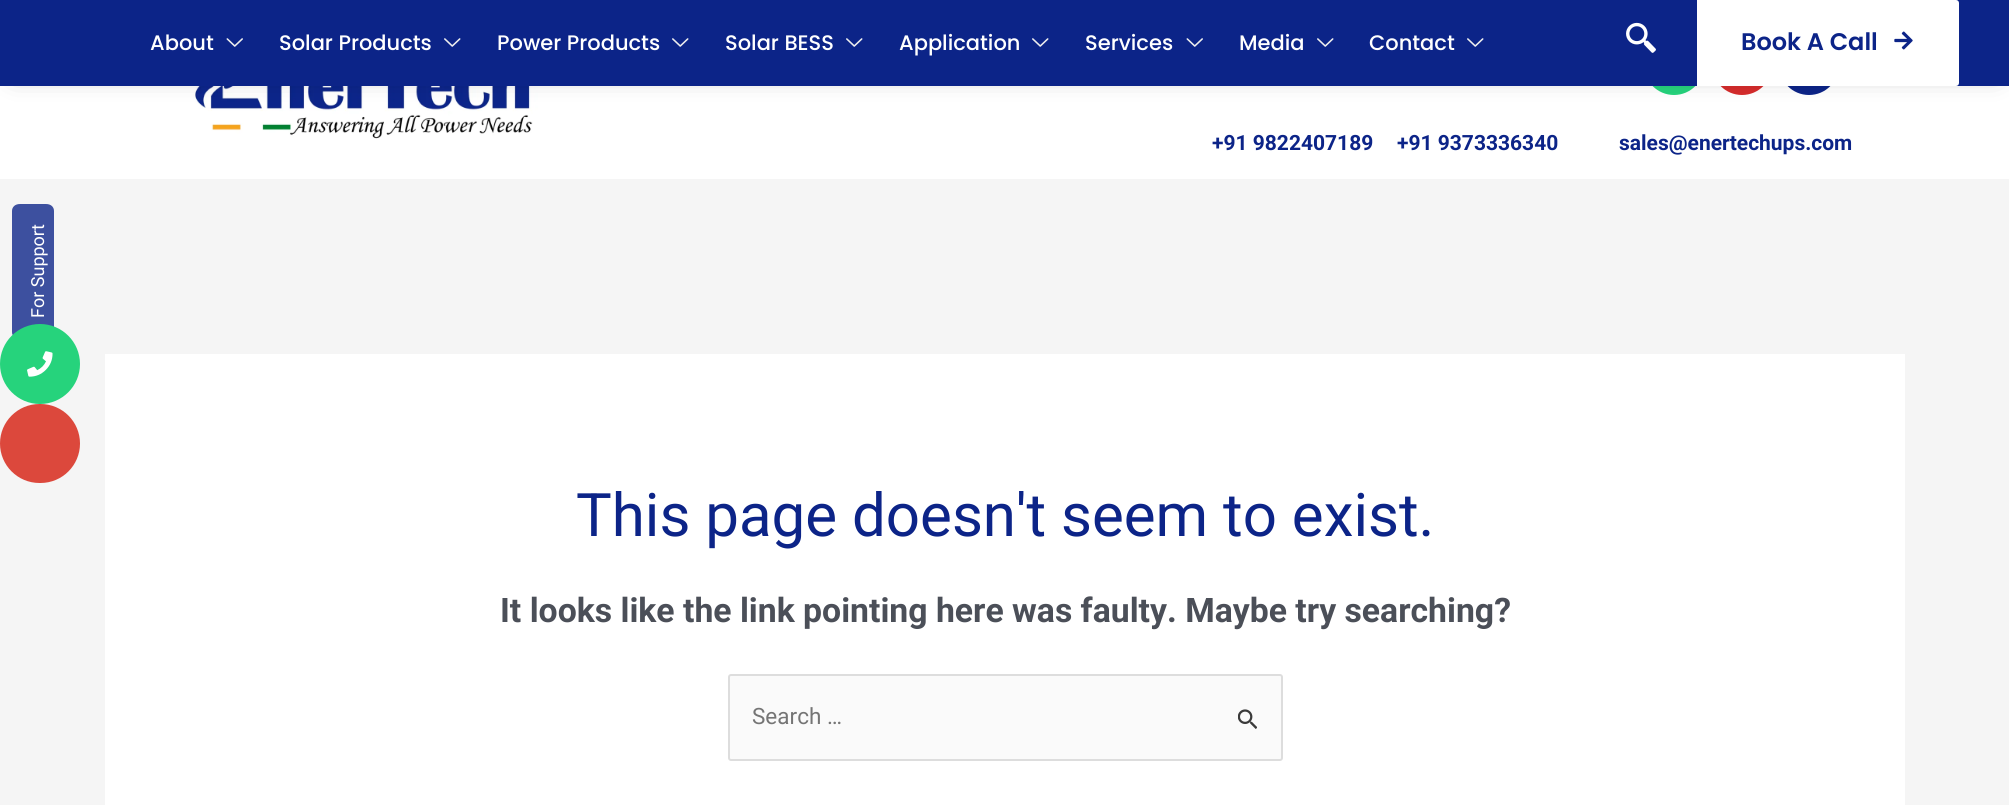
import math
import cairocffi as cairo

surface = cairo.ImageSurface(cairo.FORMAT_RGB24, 2009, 805)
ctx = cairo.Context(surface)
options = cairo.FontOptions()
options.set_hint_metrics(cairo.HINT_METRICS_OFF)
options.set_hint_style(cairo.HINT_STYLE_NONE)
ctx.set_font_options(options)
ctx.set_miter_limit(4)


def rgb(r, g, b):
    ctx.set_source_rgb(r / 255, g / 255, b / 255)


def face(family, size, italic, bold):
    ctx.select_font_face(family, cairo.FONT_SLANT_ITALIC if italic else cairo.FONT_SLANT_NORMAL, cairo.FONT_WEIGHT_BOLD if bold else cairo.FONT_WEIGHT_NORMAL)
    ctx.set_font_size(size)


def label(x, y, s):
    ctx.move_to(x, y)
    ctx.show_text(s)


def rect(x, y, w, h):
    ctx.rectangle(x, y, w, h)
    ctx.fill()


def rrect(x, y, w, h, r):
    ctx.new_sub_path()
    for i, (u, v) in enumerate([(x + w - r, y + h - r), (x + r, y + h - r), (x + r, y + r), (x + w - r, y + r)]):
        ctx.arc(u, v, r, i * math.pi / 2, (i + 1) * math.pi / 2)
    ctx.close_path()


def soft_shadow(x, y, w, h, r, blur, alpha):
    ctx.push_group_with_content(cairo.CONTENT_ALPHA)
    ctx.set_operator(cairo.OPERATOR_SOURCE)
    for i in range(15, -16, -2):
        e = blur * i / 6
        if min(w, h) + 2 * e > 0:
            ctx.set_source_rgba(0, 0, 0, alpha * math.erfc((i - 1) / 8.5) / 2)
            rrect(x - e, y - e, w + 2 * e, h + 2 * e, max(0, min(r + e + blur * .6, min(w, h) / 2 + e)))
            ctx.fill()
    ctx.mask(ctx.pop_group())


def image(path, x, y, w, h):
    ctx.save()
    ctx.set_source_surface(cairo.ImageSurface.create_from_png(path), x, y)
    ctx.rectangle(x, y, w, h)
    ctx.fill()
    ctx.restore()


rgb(245, 245, 245)
ctx.paint()
rgb(255, 255, 255)
rect(0, 86, 2009, 93)
image('image4.png', 193, 86, 354, 53)
rgb(38, 211, 124)
ctx.arc(1674, 65, 30, 0, 2 * math.pi)
ctx.fill()
rgb(214, 44, 44)
ctx.arc(1742, 65, 30, 0, 2 * math.pi)
ctx.fill()
rgb(12, 36, 136)
ctx.arc(1809, 65, 30, 0, 2 * math.pi)
ctx.fill()
rgb(0, 0, 0)
soft_shadow(14, 14, 1983, 58, 0, 14, 0.32)
rgb(12, 36, 136)
rect(0, 0, 2009, 86)
face('Poppins Medium', 21, 0, 0)
rgb(255, 255, 255)
label(150, 50, 'About')
image('image0.png', 226, 38, 17, 9)
label(279, 50, 'Solar Products')
image('image1.png', 444, 38, 17, 9)
label(497, 50, 'Power Products')
image('image1.png', 672, 38, 17, 9)
label(725, 50, 'Solar BESS')
image('image1.png', 846, 38, 17, 9)
label(899, 50, 'Application')
image('image1.png', 1032, 38, 17, 9)
label(1085, 50, 'Services')
image('image0.png', 1186, 38, 17, 9)
label(1239, 50, 'Media')
image('image1.png', 1317, 38, 17, 9)
label(1369, 50, 'Contact')
image('image1.png', 1467, 38, 17, 9)
image('image2.png', 1626, 22, 30, 31)
rect(1697, 0, 3, 86)
rrect(1697, 0, 262, 86, 3)
ctx.fill()
face('Poppins SemiBold', 24, 0, 0)
rgb(12, 36, 136)
label(1741, 50, 'Book A Call')
image('image3.png', 1894, 31, 19, 19)
face('Roboto', 21, 0, 1)
label(1212, 150, '+91 9822407189')
label(1397, 150, '+91 9373336340')
label(1619, 150, 'sales@enertechups.com')
rgb(61, 80, 159)
ctx.new_path()
ctx.move_to(12, 332)
ctx.line_to(12, 211)
ctx.curve_to(12, 207, 15, 204, 20, 204)
ctx.line_to(46, 204)
ctx.curve_to(51, 204, 54, 207, 54, 211)
ctx.line_to(54, 332)
ctx.curve_to(54, 336, 51, 339, 46, 339)
ctx.line_to(20, 339)
ctx.curve_to(15, 339, 12, 336, 12, 332)
ctx.close_path()
ctx.fill()
face('Roboto', 18, 0, 0)
rgb(255, 255, 255)
ctx.save()
ctx.translate(44, 318)
ctx.rotate(-90 * math.pi / 180)
label(0, 0, 'For Support')
ctx.restore()
rect(105, 354, 1800, 451)
face('Roboto', 60, 0, 0)
rgb(12, 36, 136)
label(576, 536, 'This page doesn\'t seem to exist.')
face('Roboto', 33.75, 0, 1)
rgb(75, 79, 88)
label(500, 622, 'It looks like the link pointing here was faulty. Maybe try searching?')
rgb(250, 250, 250)
rrect(729, 675, 553, 85, 2)
ctx.fill_preserve()
rgb(221, 221, 221)
ctx.stroke()
face('Roboto', 22.5, 0, 0)
rgb(117, 117, 117)
label(752, 724, 'Search …')
image('image5.png', 1238, 709, 19, 20)
rgb(38, 211, 124)
ctx.arc(40, 364, 40, 0, 2 * math.pi)
ctx.fill()
image('image6.png', 27, 351, 26, 26)
rgb(220, 72, 60)
rrect(0, 404, 80, 79, 39.5)
ctx.fill()
surface.write_to_png('render.png')
